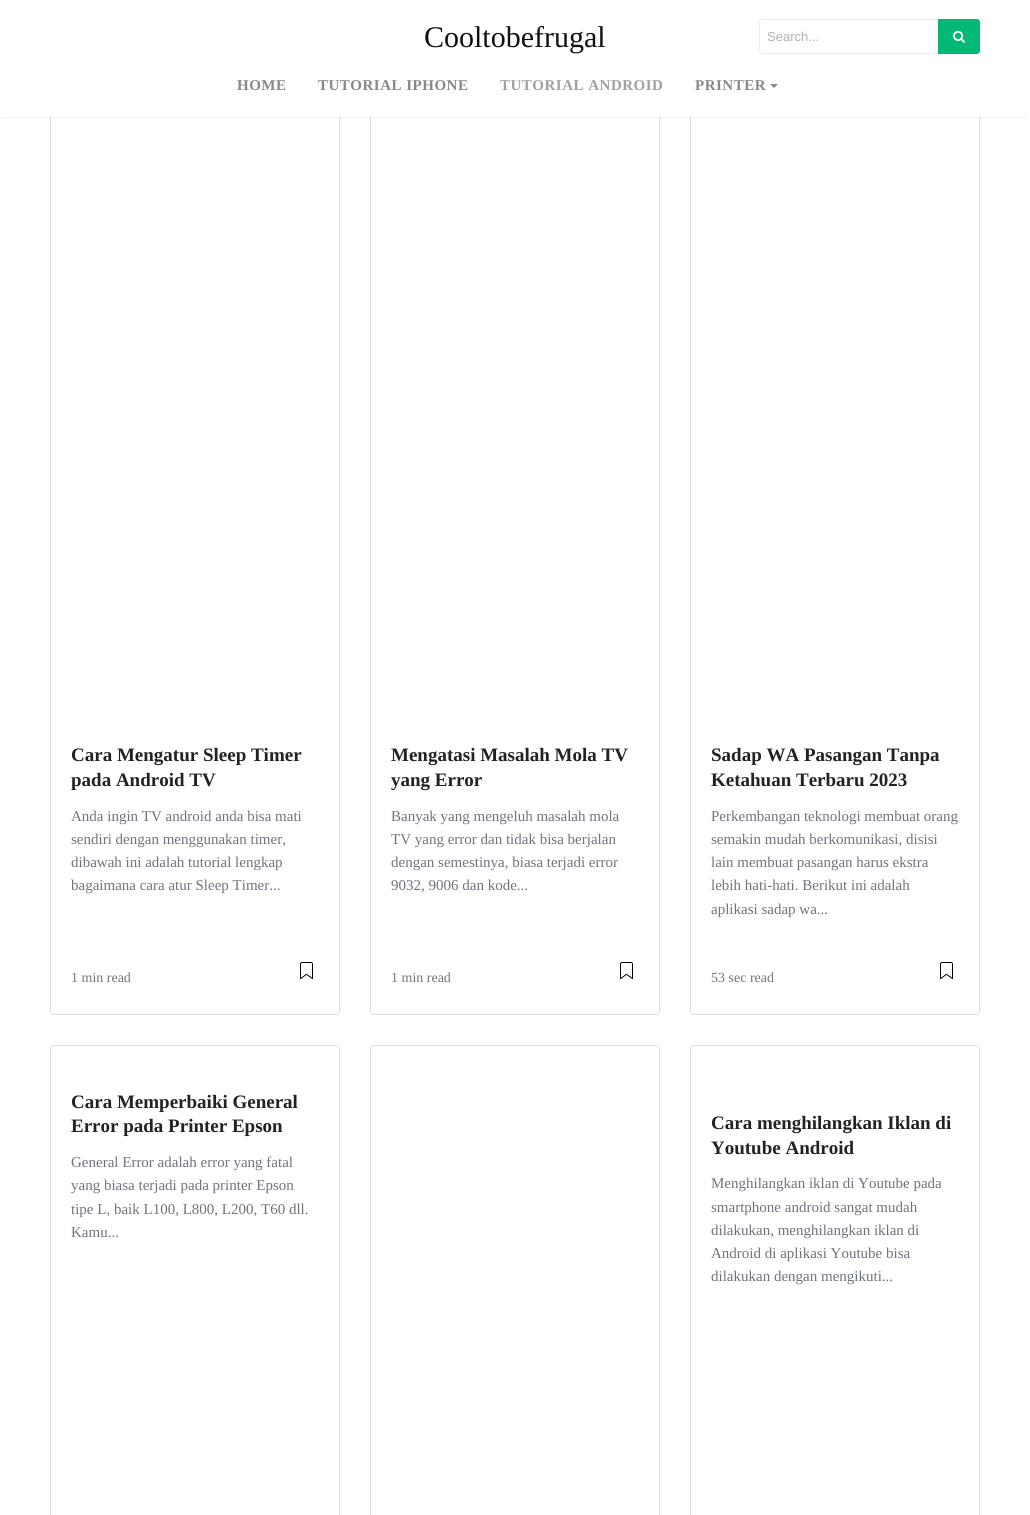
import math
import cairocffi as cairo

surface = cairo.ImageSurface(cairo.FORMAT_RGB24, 1030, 1515)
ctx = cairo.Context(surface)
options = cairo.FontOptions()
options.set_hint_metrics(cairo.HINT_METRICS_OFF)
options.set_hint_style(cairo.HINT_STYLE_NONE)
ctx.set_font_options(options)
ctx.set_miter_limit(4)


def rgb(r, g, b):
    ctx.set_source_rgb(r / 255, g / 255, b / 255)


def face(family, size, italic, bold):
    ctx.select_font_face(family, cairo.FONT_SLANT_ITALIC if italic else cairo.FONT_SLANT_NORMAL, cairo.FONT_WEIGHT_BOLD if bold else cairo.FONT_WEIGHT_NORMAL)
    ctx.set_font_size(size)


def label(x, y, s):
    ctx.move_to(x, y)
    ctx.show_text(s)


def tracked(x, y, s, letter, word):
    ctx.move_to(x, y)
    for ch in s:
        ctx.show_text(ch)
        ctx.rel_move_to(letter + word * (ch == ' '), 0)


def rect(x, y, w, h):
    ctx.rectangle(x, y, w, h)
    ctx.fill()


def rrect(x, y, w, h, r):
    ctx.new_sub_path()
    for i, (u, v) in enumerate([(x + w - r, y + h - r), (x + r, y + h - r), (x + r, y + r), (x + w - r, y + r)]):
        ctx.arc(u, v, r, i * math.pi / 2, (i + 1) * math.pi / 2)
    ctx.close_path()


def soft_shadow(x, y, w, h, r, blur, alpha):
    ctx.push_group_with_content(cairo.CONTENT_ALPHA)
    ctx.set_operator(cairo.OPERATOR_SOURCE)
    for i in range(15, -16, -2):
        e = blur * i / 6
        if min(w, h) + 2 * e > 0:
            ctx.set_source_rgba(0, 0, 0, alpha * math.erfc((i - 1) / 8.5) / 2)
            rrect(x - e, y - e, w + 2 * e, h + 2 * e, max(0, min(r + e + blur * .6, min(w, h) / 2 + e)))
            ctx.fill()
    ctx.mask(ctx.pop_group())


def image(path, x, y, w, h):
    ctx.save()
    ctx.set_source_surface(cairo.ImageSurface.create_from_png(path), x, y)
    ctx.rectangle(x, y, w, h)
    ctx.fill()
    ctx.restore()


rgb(255, 255, 255)
ctx.paint()
rrect(50.5, -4.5, 289, 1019, 3.5)
rgb(223, 223, 223)
ctx.set_line_width(1)
ctx.stroke()
rrect(370.5, -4.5, 289, 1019, 3.5)
ctx.stroke()
rrect(690.5, -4.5, 289, 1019, 3.5)
ctx.stroke()
ctx.save()
ctx.rectangle(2, 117, 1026, 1)
ctx.clip()
rgb(0, 0, 0)
soft_shadow(2, 4, 1026, 113, 0, 1, 0.15)
ctx.restore()
ctx.set_source_rgba(1, 1, 1, 0.97)
rect(50, 0, 930, 117)
face('Liberation Serif', 30, 0, 0)
rgb(17, 17, 17)
label(424, 47, 'Cooltobefrugal')
ctx.new_path()
ctx.move_to(762, 19.5)
ctx.line_to(938.5, 19.5)
ctx.line_to(938.5, 53.5)
ctx.line_to(762, 53.5)
ctx.curve_to(760.5, 53.5, 759.5, 52.5, 759.5, 51)
ctx.line_to(759.5, 22)
ctx.curve_to(759.5, 20.5, 760.5, 19.5, 762, 19.5)
ctx.close_path()
rgb(238, 238, 238)
ctx.stroke()
face('Liberation Sans', 13, 0, 0)
rgb(178, 178, 178)
label(767, 41, 'Search...')
rgb(2, 184, 117)
ctx.new_path()
ctx.move_to(938, 19)
ctx.line_to(977, 19)
ctx.curve_to(978.5, 19, 980, 20.5, 980, 22)
ctx.line_to(980, 51)
ctx.curve_to(980, 52.5, 978.5, 54, 977, 54)
ctx.line_to(938, 54)
ctx.close_path()
ctx.fill()
image('image0.png', 953, 30, 12, 13)
face('Liberation Serif', 15, 0, 1)
rgb(136, 136, 136)
tracked(237, 90, 'HOME', 0.5, 0)
tracked(318, 90, 'TUTORIAL IPHONE', 0.5, 0)
rgb(160, 160, 160)
tracked(500, 90, 'TUTORIAL ANDROID', 0.5, 0)
rgb(136, 136, 136)
tracked(695, 90, 'PRINTER', 0.5, 0)
ctx.new_path()
ctx.move_to(770, 84)
ctx.line_to(778, 84)
ctx.line_to(774, 88)
ctx.close_path()
ctx.fill()
face('Liberation Serif', 19, 0, 1)
rgb(34, 34, 34)
label(71, 761, 'Cara Mengatur Sleep Timer')
label(71, 786, 'pada Android TV')
face('Liberation Serif', 15, 0, 0)
rgb(111, 115, 124)
label(71, 821, 'Anda ingin TV android anda bisa mati')
label(71, 844, 'sendiri dengan menggunakan timer,')
label(71, 867, 'dibawah ini adalah tutorial lengkap')
label(71, 890, 'bagaimana cara atur Sleep Timer...')
face('Liberation Serif', 14, 0, 0)
rgb(117, 117, 117)
label(71, 982, '1 min read')
image('image1.png', 300, 962, 13, 18)
face('Liberation Serif', 19, 0, 1)
rgb(34, 34, 34)
label(391, 761, 'Mengatasi Masalah Mola TV')
label(391, 786, 'yang Error')
face('Liberation Serif', 15, 0, 0)
rgb(111, 115, 124)
label(391, 821, 'Banyak yang mengeluh masalah mola')
label(391, 844, 'TV yang error dan tidak bisa berjalan')
label(391, 867, 'dengan semestinya, biasa terjadi error')
label(391, 890, '9032, 9006 dan kode...')
face('Liberation Serif', 14, 0, 0)
rgb(117, 117, 117)
label(391, 982, '1 min read')
image('image1.png', 620, 962, 13, 18)
face('Liberation Serif', 19, 0, 1)
rgb(34, 34, 34)
label(711, 761, 'Sadap WA Pasangan Tanpa')
label(711, 786, 'Ketahuan Terbaru 2023')
face('Liberation Serif', 15, 0, 0)
rgb(111, 115, 124)
label(711, 821, 'Perkembangan teknologi membuat orang')
label(711, 844, 'semakin mudah berkomunikasi, disisi')
label(711, 867, 'lain membuat pasangan harus ekstra')
label(711, 890, 'lebih hati-hati. Berikut ini adalah')
label(711, 914, 'aplikasi sadap wa...')
face('Liberation Serif', 14, 0, 0)
rgb(117, 117, 117)
label(711, 982, '53 sec read')
image('image1.png', 940, 962, 13, 18)
rrect(50.5, 1045.5, 289, 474, 3.5)
rgb(223, 223, 223)
ctx.stroke()
face('Liberation Serif', 19, 0, 1)
rgb(34, 34, 34)
label(71, 1108, 'Cara Memperbaiki General')
label(71, 1132, 'Error pada Printer Epson')
face('Liberation Serif', 15, 0, 0)
rgb(111, 115, 124)
label(71, 1167, 'General Error adalah error yang fatal')
label(71, 1190, 'yang biasa terjadi pada printer Epson')
label(71, 1214, 'tipe L, baik L100, L800, L200, T60 dll.')
label(71, 1237, 'Kamu...')
rrect(370.5, 1045.5, 289, 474, 3.5)
rgb(223, 223, 223)
ctx.stroke()
rrect(690.5, 1045.5, 289, 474, 3.5)
ctx.stroke()
face('Liberation Serif', 19, 0, 1)
rgb(34, 34, 34)
label(711, 1129, 'Cara menghilangkan Iklan di')
label(711, 1154, 'Youtube Android')
face('Liberation Serif', 15, 0, 0)
rgb(111, 115, 124)
label(711, 1188, 'Menghilangkan iklan di Youtube pada')
label(711, 1212, 'smartphone android sangat mudah')
label(711, 1235, 'dilakukan, menghilangkan iklan di')
label(711, 1258, 'Android di aplikasi Youtube bisa')
label(711, 1281, 'dilakukan dengan mengikuti...')
surface.write_to_png('render.png')
